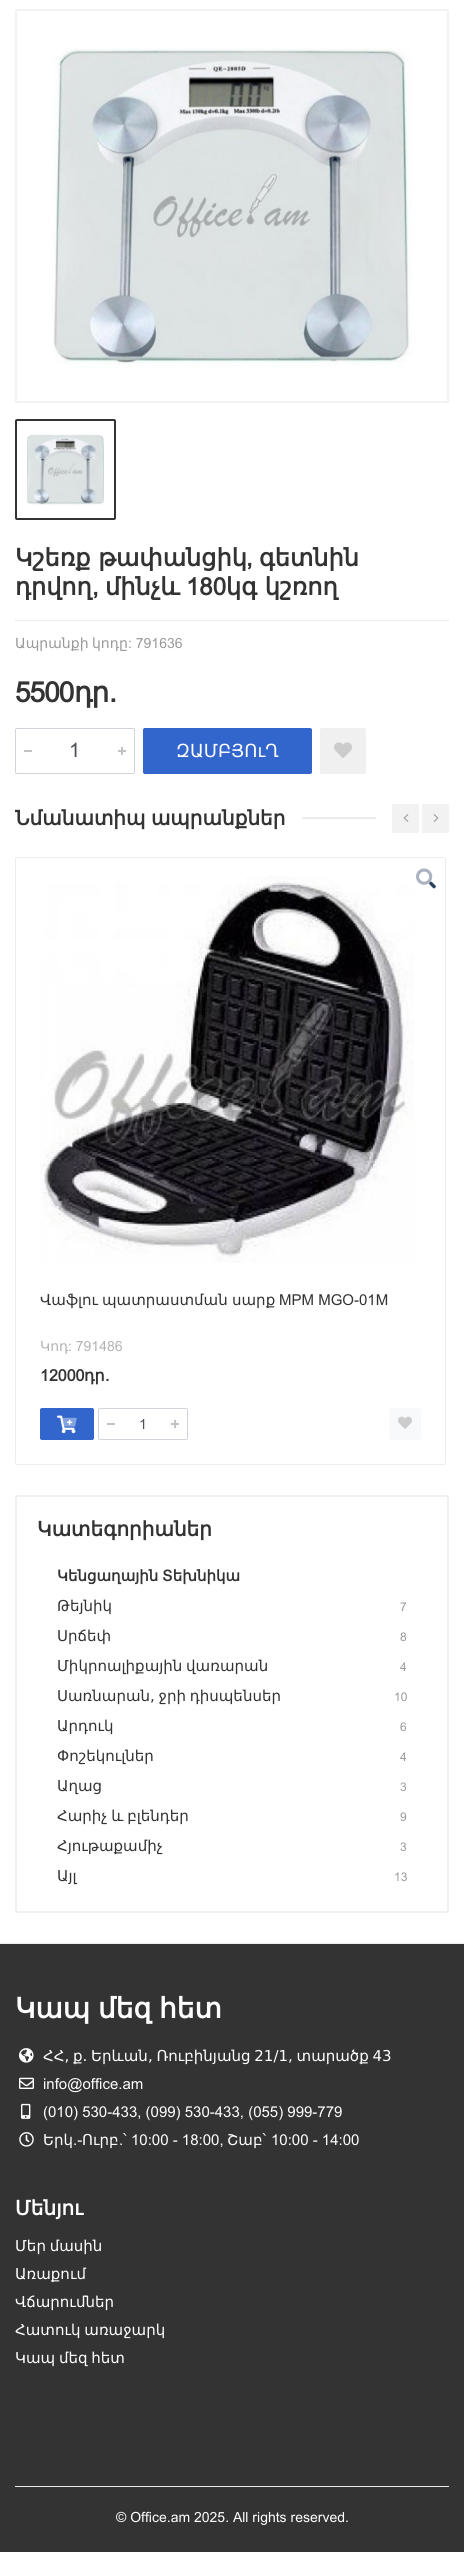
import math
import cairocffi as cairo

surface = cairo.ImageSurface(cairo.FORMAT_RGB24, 464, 2552)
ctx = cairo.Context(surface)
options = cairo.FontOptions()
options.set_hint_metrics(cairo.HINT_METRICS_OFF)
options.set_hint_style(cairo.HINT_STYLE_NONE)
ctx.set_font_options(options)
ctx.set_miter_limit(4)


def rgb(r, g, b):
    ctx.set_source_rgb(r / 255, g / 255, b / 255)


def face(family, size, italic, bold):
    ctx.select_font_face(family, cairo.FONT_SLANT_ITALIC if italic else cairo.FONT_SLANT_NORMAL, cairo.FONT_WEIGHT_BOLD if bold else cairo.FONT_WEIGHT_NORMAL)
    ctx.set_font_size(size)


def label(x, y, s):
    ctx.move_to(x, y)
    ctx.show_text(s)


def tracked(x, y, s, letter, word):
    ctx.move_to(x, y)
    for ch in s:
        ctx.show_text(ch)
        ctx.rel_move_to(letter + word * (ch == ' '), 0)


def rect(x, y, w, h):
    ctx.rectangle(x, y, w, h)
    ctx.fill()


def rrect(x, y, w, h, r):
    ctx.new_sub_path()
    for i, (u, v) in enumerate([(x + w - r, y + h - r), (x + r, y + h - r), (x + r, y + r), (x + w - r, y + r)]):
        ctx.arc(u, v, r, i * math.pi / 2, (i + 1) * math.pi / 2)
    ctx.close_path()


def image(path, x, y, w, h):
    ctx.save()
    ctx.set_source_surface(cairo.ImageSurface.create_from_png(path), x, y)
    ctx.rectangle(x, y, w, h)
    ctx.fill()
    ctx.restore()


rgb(255, 255, 255)
ctx.paint()
rrect(16, 10, 432, 392, 1)
rgb(242, 242, 242)
ctx.stroke()
image('image0.png', 52, 48, 360, 320)
rrect(16, 420, 99, 99, 1)
rgb(51, 51, 51)
ctx.stroke()
image('image1.png', 27, 434, 77, 71)
face('DejaVu Sans', 24, 0, 1)
label(15, 566, 'Կշեռք թափանցիկ')
face('Arial', 24, 0, 1)
label(246, 566, ',')
face('DejaVu Sans', 24, 0, 1)
label(259, 566, 'գետնին')
label(15, 595, 'դրվող')
face('Arial', 24, 0, 1)
label(92, 595, ',')
face('DejaVu Sans', 24, 0, 1)
label(105, 595, 'մինչև')
face('Arial', 24, 0, 1)
label(186, 595, '180')
face('DejaVu Sans', 24, 0, 1)
label(226, 595, 'կգ կշռող')
rgb(235, 235, 235)
rect(15, 620, 434, 1)
face('DejaVu Sans', 14, 0, 0)
rgb(153, 153, 153)
label(15, 648, 'Ապրանքի')
label(92, 648, 'կոդը')
face('Arial', 14, 0, 0)
label(128, 648, ': 791636')
face('Arial', 28, 0, 1)
rgb(51, 51, 51)
tracked(15, 702, '5500', -1, 0)
face('DejaVu Sans', 28, 0, 1)
tracked(74, 702, 'դր', -1, 0)
face('Arial', 28, 0, 1)
tracked(109, 702, '.', -1, 0)
rrect(15.5, 728.5, 119, 45, 1.5)
rgb(206, 212, 218)
ctx.set_line_width(1)
ctx.stroke()
rgb(194, 194, 194)
rect(24, 750, 8, 2)
face('Arial', 20, 0, 0)
rgb(73, 80, 87)
label(69, 757, '1')
rgb(194, 194, 194)
rect(118, 750, 8, 2)
rect(121, 747, 2, 8)
rgb(51, 102, 204)
rrect(143.5, 728.5, 168, 45, 1.5)
ctx.fill_preserve()
ctx.stroke()
face('DejaVu Sans', 18, 0, 0)
rgb(255, 255, 255)
label(176, 757, 'ԶԱՄԲՅՈւՂ')
rgb(240, 240, 240)
rrect(320.5, 728.5, 45, 45, 1.5)
ctx.fill_preserve()
ctx.stroke()
image('image2.png', 334, 742, 18, 16)
face('DejaVu Sans', 20, 0, 1)
rgb(51, 51, 51)
tracked(15, 825, 'Նմանատիպ ապրանքներ', 0, -1)
rgb(235, 235, 235)
rect(302, 817, 74, 2)
rgb(242, 242, 242)
rrect(392, 804, 27, 29, 1.5)
ctx.fill()
image('image3.png', 403, 814, 6, 8)
rrect(422, 804, 27, 29, 1.5)
ctx.fill()
image('image4.png', 433, 814, 6, 8)
image('image5.png', 40, 876, 374, 387)
rgb(51, 102, 204)
rrect(40.5, 1408.5, 53, 31, 1.5)
ctx.fill_preserve()
ctx.stroke()
image('image8.png', 57, 1415, 19, 19)
image('image9.png', 62, 1417, 15, 10)
rrect(98.5, 1408.5, 89, 31, 1.5)
rgb(206, 212, 218)
ctx.stroke()
rgb(194, 194, 194)
rect(107, 1423, 8, 2)
rect(171, 1423, 8, 2)
rect(174, 1420, 2, 8)
rgb(248, 249, 250)
rrect(389, 1408, 32, 32, 2)
ctx.fill()
image('image10.png', 398, 1416, 14, 13)
rrect(15.5, 857.5, 430, 607, 1.5)
rgb(237, 237, 237)
ctx.stroke()
image('image7.png', 429, 881, 7, 8)
image('image6.png', 416, 868, 17, 17)
face('DejaVu Sans', 15, 0, 0)
rgb(51, 51, 51)
label(40, 1305, 'Վաֆլու')
label(102, 1305, 'պատրաստման')
label(232, 1305, 'սարք')
face('Arial', 15, 0, 0)
label(279, 1305, 'MPM MGO-01M')
face('DejaVu Sans', 14, 0, 0)
rgb(179, 179, 179)
label(40, 1351, 'Կոդ')
face('Arial', 14, 0, 0)
label(68, 1351, ': 791486')
face('Arial', 16, 0, 1)
rgb(51, 51, 51)
label(40, 1381, '12000')
face('DejaVu Sans', 16, 0, 1)
label(84, 1381, 'դր')
face('Arial', 16, 0, 1)
label(105, 1381, '.')
face('Arial', 14, 0, 0)
rgb(73, 80, 87)
label(139, 1429, '1')
rrect(16, 1496, 432, 416, 1)
rgb(240, 240, 240)
ctx.set_line_width(2)
ctx.stroke()
face('DejaVu Sans', 20, 0, 1)
rgb(51, 51, 51)
label(37, 1536, 'Կատեգորիաներ')
face('DejaVu Sans', 15, 0, 1)
tracked(57, 1581, 'Կենցաղային Տեխնիկա', 0, -1)
face('DejaVu Sans', 15, 0, 0)
label(57, 1611, 'Թեյնիկ')
face('Arial', 12, 0, 0)
rgb(153, 153, 153)
label(400, 1611, '7')
face('DejaVu Sans', 15, 0, 0)
rgb(51, 51, 51)
label(57, 1641, 'Սրճեփ')
face('Arial', 12, 0, 0)
rgb(153, 153, 153)
label(400, 1641, '8')
face('DejaVu Sans', 15, 0, 0)
rgb(51, 51, 51)
tracked(57, 1671, 'Միկրոալիքային վառարան', 0, -1)
face('Arial', 12, 0, 0)
rgb(153, 153, 153)
label(400, 1671, '4')
face('DejaVu Sans', 15, 0, 0)
rgb(51, 51, 51)
tracked(57, 1701, 'Սառնարան, ջրի դիսպենսեր', 0, -1)
face('Arial', 12, 0, 0)
rgb(153, 153, 153)
label(394, 1701, '10')
face('DejaVu Sans', 15, 0, 0)
rgb(51, 51, 51)
label(57, 1731, 'Արդուկ')
face('Arial', 12, 0, 0)
rgb(153, 153, 153)
label(400, 1731, '6')
face('DejaVu Sans', 15, 0, 0)
rgb(51, 51, 51)
label(57, 1761, 'Փոշեկուլներ')
face('Arial', 12, 0, 0)
rgb(153, 153, 153)
label(400, 1761, '4')
face('DejaVu Sans', 15, 0, 0)
rgb(51, 51, 51)
label(57, 1791, 'Աղաց')
face('Arial', 12, 0, 0)
rgb(153, 153, 153)
label(400, 1791, '3')
face('DejaVu Sans', 15, 0, 0)
rgb(51, 51, 51)
tracked(57, 1821, 'Հարիչ և բլենդեր', 0, -1)
face('Arial', 12, 0, 0)
rgb(153, 153, 153)
label(400, 1821, '9')
face('DejaVu Sans', 15, 0, 0)
rgb(51, 51, 51)
label(57, 1851, 'Հյութաքամիչ')
face('Arial', 12, 0, 0)
rgb(153, 153, 153)
label(400, 1851, '3')
face('DejaVu Sans', 15, 0, 0)
rgb(51, 51, 51)
label(57, 1881, 'Այլ')
face('Arial', 12, 0, 0)
rgb(153, 153, 153)
label(394, 1881, '13')
rgb(51, 51, 51)
rect(0, 1944, 464, 608)
rgb(235, 235, 235)
rect(0, 1943, 464, 1)
face('DejaVu Sans', 28, 0, 1)
rgb(255, 255, 255)
tracked(15, 2018, 'Կապ մեզ հետ', 0, -1)
image('image11.png', 19, 2048, 15, 15)
face('DejaVu Sans', 15, 0, 0)
tracked(43, 2061, 'ՀՀ, ք. Երևան, Ռուբինյանց 21/1, տարածք 43', 0, -1)
image('image12.png', 19, 2077, 15, 12)
face('Arial', 15, 0, 0)
label(43, 2089, 'info@office.am')
image('image13.png', 21, 2103, 10, 16)
label(43, 2117, '(010) 530-433, (099) 530-433, (055) 999-779')
image('image14.png', 19, 2132, 15, 15)
face('DejaVu Sans', 15, 0, 0)
label(43, 2145, 'Երկ')
face('Arial', 15, 0, 0)
label(73, 2145, '.-')
face('DejaVu Sans', 15, 0, 0)
label(82, 2145, 'Ուրբ')
face('Arial', 15, 0, 0)
label(119, 2145, '.')
face('DejaVu Sans', 15, 0, 0)
label(123, 2145, '՝')
face('Arial', 15, 0, 0)
label(131, 2145, '10:00 - 18:00,')
face('DejaVu Sans', 15, 0, 0)
label(227, 2145, 'Շաբ՝')
face('Arial', 15, 0, 0)
label(271, 2145, '10:00 - 14:00')
face('DejaVu Sans', 20, 0, 1)
label(15, 2215, 'Մենյու')
face('DejaVu Sans', 15, 0, 0)
tracked(15, 2251, 'Մեր մասին', 0, -1)
label(15, 2279, 'Առաքում')
label(15, 2307, 'Վճարումներ')
tracked(15, 2335, 'Հատուկ առաջարկ', 0, -1)
tracked(15, 2363, 'Կապ մեզ հետ', 0, -1)
rgb(235, 235, 235)
rect(15, 2486, 434, 1)
face('Arial', 14, 0, 0)
rgb(255, 255, 255)
label(116, 2522, '© Office.am 2025. All rights reserved.')
surface.write_to_png('render.png')
